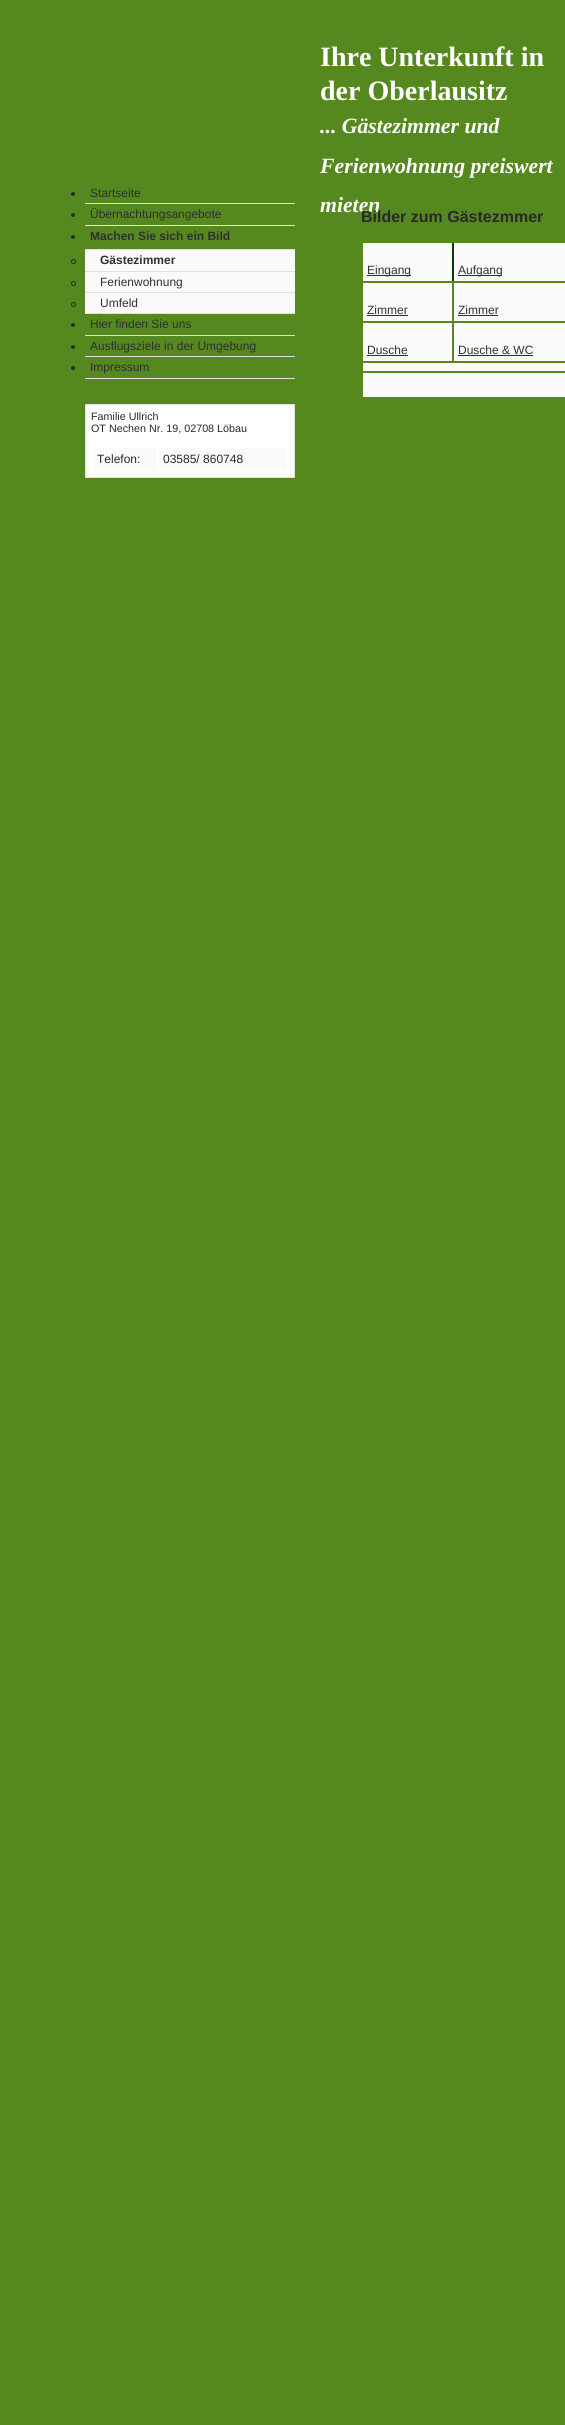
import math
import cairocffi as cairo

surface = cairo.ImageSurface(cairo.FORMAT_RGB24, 565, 2425)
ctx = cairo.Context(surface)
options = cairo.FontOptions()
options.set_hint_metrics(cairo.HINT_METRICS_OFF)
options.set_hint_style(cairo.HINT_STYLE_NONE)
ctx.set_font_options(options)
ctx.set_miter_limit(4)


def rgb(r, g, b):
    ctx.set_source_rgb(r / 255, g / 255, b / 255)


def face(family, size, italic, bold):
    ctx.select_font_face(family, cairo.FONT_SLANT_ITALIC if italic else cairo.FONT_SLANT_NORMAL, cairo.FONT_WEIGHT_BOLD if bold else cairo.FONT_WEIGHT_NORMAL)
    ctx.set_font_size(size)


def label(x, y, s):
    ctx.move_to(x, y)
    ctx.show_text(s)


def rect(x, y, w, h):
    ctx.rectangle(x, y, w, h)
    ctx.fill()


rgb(85, 136, 31)
ctx.paint()
face('Liberation Serif', 28, 0, 1)
rgb(255, 255, 255)
label(320, 66, 'Ihre Unterkunft in')
label(320, 100, 'der Oberlausitz')
face('Liberation Serif', 21.75, 1, 1)
label(320, 133, '... Gästezimmer und')
label(320, 173, 'Ferienwohnung preiswert')
label(320, 212, 'mieten')
rgb(224, 224, 224)
rect(85, 203, 210, 1)
rgb(41, 41, 41)
ctx.new_path()
ctx.arc(73, 194, 2, 0, 2 * math.pi)
ctx.fill()
face('Liberation Sans', 12, 0, 0)
rgb(48, 48, 48)
label(90, 197, 'Startseite')
rgb(224, 224, 224)
rect(85, 225, 210, 1)
rgb(41, 41, 41)
ctx.new_path()
ctx.arc(73, 215, 2, 0, 2 * math.pi)
ctx.fill()
rgb(48, 48, 48)
label(90, 218, 'Übernachtungsangebote')
rgb(224, 224, 224)
rect(85, 313, 210, 1)
rgb(41, 41, 41)
ctx.new_path()
ctx.arc(73, 237, 2, 0, 2 * math.pi)
ctx.fill()
face('Liberation Sans', 12, 0, 1)
rgb(48, 48, 48)
label(90, 240, 'Machen Sie sich ein Bild')
rgb(250, 250, 250)
rect(85, 250, 210, 21)
rgb(224, 224, 224)
rect(85, 249, 210, 1)
ctx.new_path()
ctx.arc(73.5, 261.5, 2, 0, 2 * math.pi)
rgb(41, 41, 41)
ctx.set_line_width(1)
ctx.stroke()
rgb(48, 48, 48)
label(100, 264, 'Gästezimmer')
rgb(250, 250, 250)
rect(85, 272, 210, 20)
rgb(224, 224, 224)
rect(85, 271, 210, 1)
ctx.new_path()
ctx.arc(73.5, 283.5, 2, 0, 2 * math.pi)
rgb(41, 41, 41)
ctx.stroke()
face('Liberation Sans', 12, 0, 0)
rgb(48, 48, 48)
label(100, 286, 'Ferienwohnung')
rgb(250, 250, 250)
rect(85, 293, 210, 20)
rgb(224, 224, 224)
rect(85, 292, 210, 1)
ctx.new_path()
ctx.arc(73.5, 304.5, 2, 0, 2 * math.pi)
rgb(41, 41, 41)
ctx.stroke()
rgb(48, 48, 48)
label(100, 307, 'Umfeld')
rgb(224, 224, 224)
rect(85, 335, 210, 1)
rgb(41, 41, 41)
ctx.new_path()
ctx.arc(73, 325, 2, 0, 2 * math.pi)
ctx.fill()
rgb(48, 48, 48)
label(90, 328, 'Hier finden Sie uns')
rgb(224, 224, 224)
rect(85, 356, 210, 1)
rgb(41, 41, 41)
ctx.new_path()
ctx.arc(73, 347, 2, 0, 2 * math.pi)
ctx.fill()
rgb(48, 48, 48)
label(90, 350, 'Ausflugsziele in der Umgebung')
rgb(224, 224, 224)
rect(85, 378, 210, 1)
rgb(41, 41, 41)
ctx.new_path()
ctx.arc(73, 368, 2, 0, 2 * math.pi)
ctx.fill()
rgb(48, 48, 48)
label(90, 371, 'Impressum')
rgb(255, 255, 255)
ctx.rectangle(85.5, 404.5, 209, 73)
ctx.fill_preserve()
rgb(224, 224, 224)
ctx.stroke()
face('Liberation Sans', 10.75, 0, 0)
rgb(41, 41, 41)
label(91, 420, 'Familie Ullrich')
label(91, 432, 'OT Nechen Nr. 19, 02708 Löbau')
rgb(250, 250, 250)
rect(93, 448, 64, 22)
face('Liberation Sans', 12, 0, 0)
rgb(41, 41, 41)
label(97, 463, 'Telefon:')
rgb(250, 250, 250)
rect(159, 448, 128, 22)
rgb(41, 41, 41)
label(163, 463, '03585/ 860748')
face('Liberation Sans', 16, 0, 1)
label(361, 222, 'Bilder zum Gästezmmer')
rgb(0, 64, 0)
rect(452, 243, 2, 38)
rgb(250, 250, 250)
rect(363, 243, 89, 38)
rgb(48, 48, 48)
rect(367, 275, 44, 1)
face('Liberation Sans', 12, 0, 0)
label(367, 274, 'Eingang')
rgb(250, 250, 250)
rect(454, 243, 111, 38)
rgb(48, 48, 48)
rect(458, 275, 44, 1)
label(458, 274, 'Aufgang')
rgb(250, 250, 250)
rect(363, 283, 89, 38)
rgb(48, 48, 48)
label(367, 314, 'Zimmer')
rect(367, 315, 41, 1)
rgb(250, 250, 250)
rect(454, 283, 111, 38)
rgb(48, 48, 48)
label(458, 314, 'Zimmer')
rect(458, 315, 40, 1)
rgb(250, 250, 250)
rect(363, 323, 89, 38)
rgb(48, 48, 48)
label(367, 354, 'Dusche')
rect(367, 355, 41, 1)
rgb(250, 250, 250)
rect(454, 323, 111, 38)
rgb(48, 48, 48)
label(458, 354, 'Dusche & WC')
rect(458, 355, 75, 1)
rgb(250, 250, 250)
rect(363, 363, 202, 8)
rect(363, 373, 202, 24)
surface.write_to_png('render.png')
